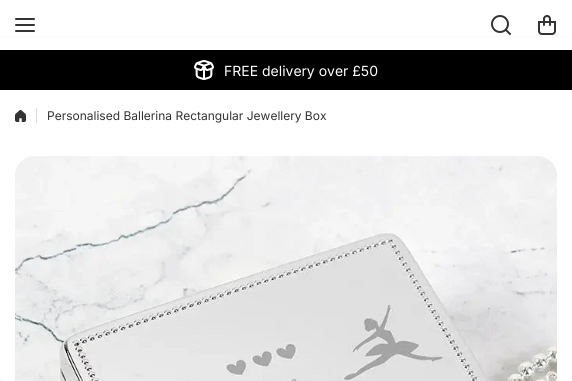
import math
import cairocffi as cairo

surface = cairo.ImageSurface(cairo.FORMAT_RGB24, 572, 381)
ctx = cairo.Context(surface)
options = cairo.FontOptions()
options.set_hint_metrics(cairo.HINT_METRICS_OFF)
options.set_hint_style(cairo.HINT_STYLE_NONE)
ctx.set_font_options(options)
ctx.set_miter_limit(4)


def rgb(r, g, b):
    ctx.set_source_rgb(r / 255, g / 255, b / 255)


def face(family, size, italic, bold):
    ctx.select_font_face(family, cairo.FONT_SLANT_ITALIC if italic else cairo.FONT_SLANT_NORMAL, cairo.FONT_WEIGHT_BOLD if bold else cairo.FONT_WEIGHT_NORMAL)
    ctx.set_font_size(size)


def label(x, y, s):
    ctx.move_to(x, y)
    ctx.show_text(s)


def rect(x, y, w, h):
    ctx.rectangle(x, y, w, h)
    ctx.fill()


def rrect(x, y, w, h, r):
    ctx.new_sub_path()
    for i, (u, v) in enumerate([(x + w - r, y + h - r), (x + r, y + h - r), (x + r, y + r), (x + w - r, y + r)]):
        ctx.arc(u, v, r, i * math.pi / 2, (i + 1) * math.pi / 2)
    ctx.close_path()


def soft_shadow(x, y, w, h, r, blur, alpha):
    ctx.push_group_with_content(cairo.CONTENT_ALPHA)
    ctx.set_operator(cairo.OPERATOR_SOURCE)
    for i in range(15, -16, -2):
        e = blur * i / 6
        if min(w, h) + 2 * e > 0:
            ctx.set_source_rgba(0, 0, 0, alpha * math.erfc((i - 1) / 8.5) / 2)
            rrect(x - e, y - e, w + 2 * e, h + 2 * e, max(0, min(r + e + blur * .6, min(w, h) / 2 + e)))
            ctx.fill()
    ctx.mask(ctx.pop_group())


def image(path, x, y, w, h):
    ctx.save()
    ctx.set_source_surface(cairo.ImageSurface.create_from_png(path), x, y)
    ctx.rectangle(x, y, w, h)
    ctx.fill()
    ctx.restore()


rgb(255, 255, 255)
ctx.paint()
rgb(0, 0, 0)
rect(0, 50, 572, 40)
image('image3.png', 194, 60, 20, 20)
rgb(0, 0, 0)
soft_shadow(0, 44, 572, 10, 0, 5, 0.1)
rgb(255, 255, 255)
rect(0, 38, 572, 12)
image('image0.png', 15, 18, 20, 14)
image('image1.png', 491, 15, 20, 20)
image('image2.png', 538, 15, 18, 20)
face('Inter', 14, 0, 0)
label(224, 76, 'FREE delivery over £50')
image('image4.png', 15, 110, 11, 12)
rgb(217, 217, 217)
rect(36, 108, 1, 15)
face('Inter', 12, 0, 0)
rgb(51, 51, 51)
label(47, 120, 'Personalised Ballerina Rectangular Jewellery Box')
rgb(245, 245, 245)
rrect(15, 156, 542, 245, 20)
ctx.fill()
image('image5.png', 15, 156, 542, 225)
rect(0, 379, 2, 2)
surface.write_to_png('render.png')
